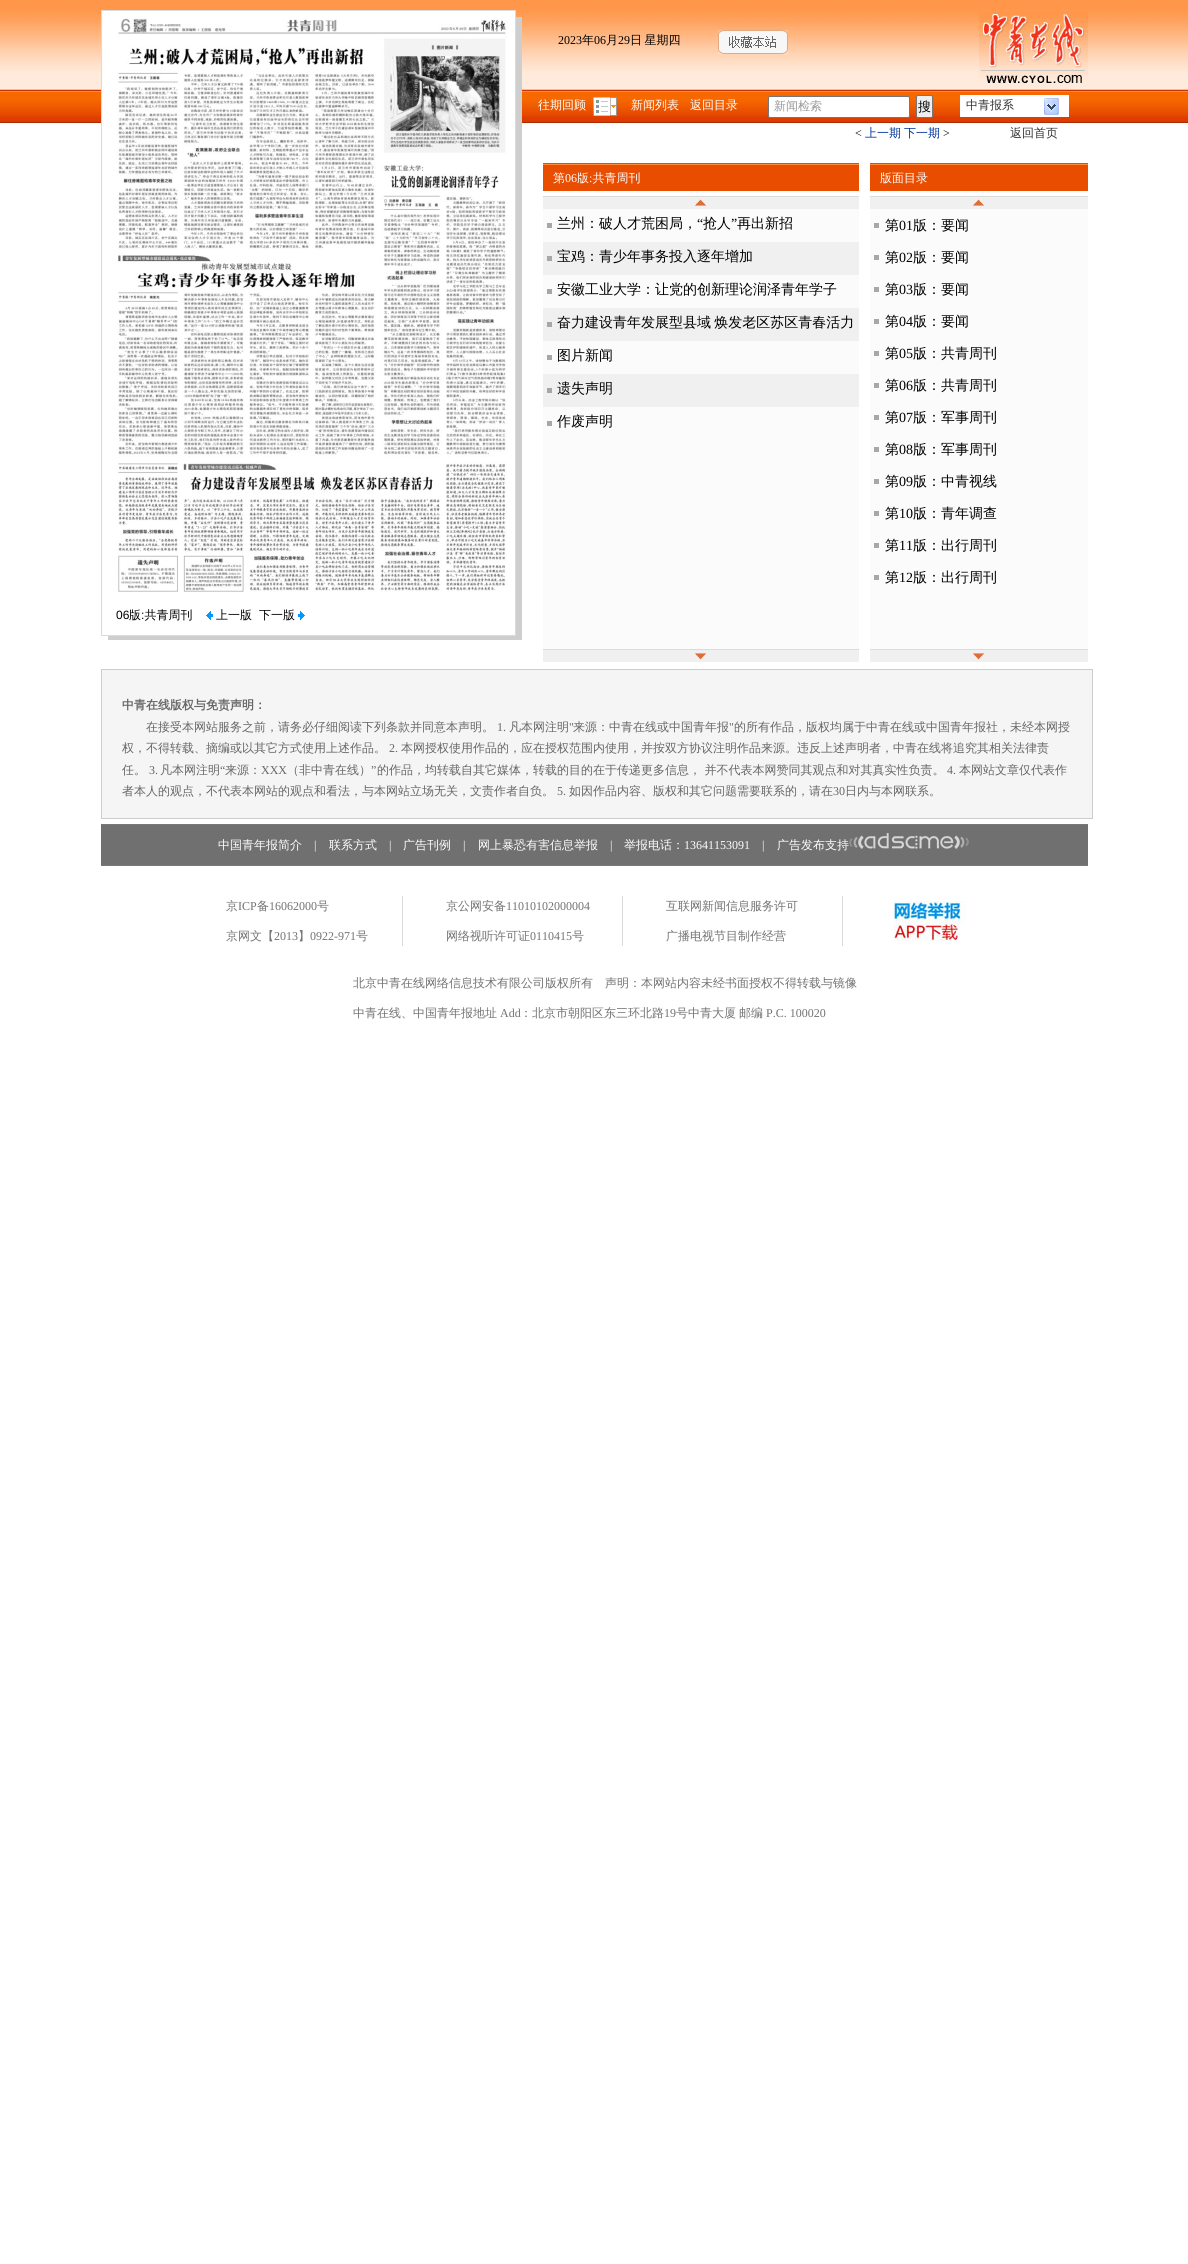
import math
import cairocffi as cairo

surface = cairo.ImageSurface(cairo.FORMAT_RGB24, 1188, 2264)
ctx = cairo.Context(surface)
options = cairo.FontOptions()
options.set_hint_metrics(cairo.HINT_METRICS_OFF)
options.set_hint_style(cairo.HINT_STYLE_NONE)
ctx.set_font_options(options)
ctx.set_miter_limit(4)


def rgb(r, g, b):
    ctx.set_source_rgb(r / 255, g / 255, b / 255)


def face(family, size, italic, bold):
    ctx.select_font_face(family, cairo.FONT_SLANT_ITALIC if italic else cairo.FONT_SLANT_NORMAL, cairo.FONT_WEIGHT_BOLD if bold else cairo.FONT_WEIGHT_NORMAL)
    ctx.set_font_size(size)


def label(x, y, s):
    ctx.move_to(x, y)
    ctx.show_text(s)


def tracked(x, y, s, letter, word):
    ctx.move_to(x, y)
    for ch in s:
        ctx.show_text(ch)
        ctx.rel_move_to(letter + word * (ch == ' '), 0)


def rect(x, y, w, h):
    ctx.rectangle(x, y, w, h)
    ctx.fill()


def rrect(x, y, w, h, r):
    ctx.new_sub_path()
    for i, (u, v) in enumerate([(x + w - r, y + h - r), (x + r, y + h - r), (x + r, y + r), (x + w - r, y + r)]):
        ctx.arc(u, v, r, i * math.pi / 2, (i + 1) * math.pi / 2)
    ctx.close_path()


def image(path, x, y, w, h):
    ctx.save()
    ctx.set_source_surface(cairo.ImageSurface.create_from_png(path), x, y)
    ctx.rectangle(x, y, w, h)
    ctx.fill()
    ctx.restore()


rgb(255, 255, 255)
ctx.paint()
image('image0.png', 0, 0, 1188, 89)
rgb(172, 208, 234)
rect(0, 89, 1188, 1)
face('Liberation Serif', 12, 0, 0)
rgb(0, 0, 0)
label(558, 44, '2023')
face('WenQuanYi Zen Hei Medium', 12, 0, 0)
label(582, 44, '年')
face('Liberation Serif', 12, 0, 0)
label(594, 44, '06')
face('WenQuanYi Zen Hei Medium', 12, 0, 0)
label(606, 44, '月')
face('Liberation Serif', 12, 0, 0)
label(618, 44, '29')
face('WenQuanYi Zen Hei Medium', 12, 0, 0)
tracked(630, 44, '日 星期四', 0, -1)
image('image1.png', 718, 30, 70, 24)
image('image2.png', 979, 12, 109, 72)
image('image15.png', 0, 90, 1188, 33)
rgb(255, 255, 255)
label(538, 109, '往期回顾')
image('image3.png', 593, 97, 24, 19)
label(631, 109, '新闻列表')
label(690, 109, '返回目录')
rrect(768.5, 96.5, 141, 21, 1.5)
ctx.fill_preserve()
rgb(118, 118, 118)
ctx.set_line_width(1)
ctx.stroke()
rgb(153, 153, 153)
label(774, 110, '新闻检索')
rgb(239, 239, 239)
rrect(916.5, 95.5, 16, 22, 1.5)
ctx.fill_preserve()
rgb(118, 118, 118)
ctx.stroke()
face('WenQuanYi Zen Hei Medium', 13, 0, 0)
rgb(0, 0, 0)
label(918, 111, '搜')
rgb(255, 255, 255)
rect(960, 95, 109, 22)
face('WenQuanYi Zen Hei Medium', 12, 0, 0)
rgb(51, 51, 51)
label(966, 109, '中青报系')
image('image4.png', 1044, 98, 15, 17)
face('Liberation Serif', 12, 0, 0)
rgb(0, 0, 0)
label(855, 137, '<')
face('WenQuanYi Zen Hei Medium', 12, 0, 0)
rgb(0, 51, 153)
label(865, 137, '上一期')
label(904, 137, '下一期')
face('Liberation Serif', 12, 0, 0)
rgb(0, 0, 0)
label(943, 137, '>')
face('WenQuanYi Zen Hei Medium', 12, 0, 0)
rgb(51, 51, 51)
label(1010, 137, '返回首页')
image('image5.png', 543, 163, 316, 28)
rgb(255, 255, 255)
label(553, 182, '第')
face('Liberation Serif', 12, 0, 0)
label(565, 182, '06')
face('WenQuanYi Zen Hei Medium', 12, 0, 0)
label(577, 182, '版 共青周刊')
face('Liberation Serif', 12, 0, 0)
label(589, 182, ':')
rgb(240, 240, 240)
rect(543, 197, 316, 12)
rgb(219, 219, 219)
rect(543, 196, 316, 1)
image('image6.png', 695, 199, 11, 7)
rgb(251, 251, 251)
rect(543, 209, 316, 440)
rgb(167, 167, 167)
rect(547, 223, 5, 5)
face('WenQuanYi Zen Hei Medium', 14, 0, 0)
rgb(0, 0, 0)
label(557, 228, '兰州：破人才荒困局，')
face('Liberation Serif', 14, 0, 0)
label(697, 228, '“')
face('WenQuanYi Zen Hei Medium', 14, 0, 0)
label(703, 228, '抢人')
face('Liberation Serif', 14, 0, 0)
label(731, 228, '”')
face('WenQuanYi Zen Hei Medium', 14, 0, 0)
label(737, 228, '再出新招')
rgb(240, 240, 240)
rect(543, 242, 316, 33)
rgb(167, 167, 167)
rect(547, 256, 5, 5)
rgb(0, 0, 0)
label(557, 261, '宝鸡：青少年事务投入逐年增加')
rgb(167, 167, 167)
rect(547, 289, 5, 5)
rgb(0, 0, 0)
label(557, 294, '安徽工业大学：让党的创新理论润泽青年学子')
rgb(240, 240, 240)
rect(543, 308, 316, 33)
rgb(167, 167, 167)
rect(547, 322, 5, 5)
rgb(0, 0, 0)
tracked(557, 327, '奋力建设青年发展型县域 焕发老区苏区青春活力', 0, -1)
rgb(167, 167, 167)
rect(547, 355, 5, 5)
rgb(0, 0, 0)
label(557, 360, '图片新闻')
rgb(240, 240, 240)
rect(543, 374, 316, 33)
rgb(167, 167, 167)
rect(547, 388, 5, 5)
rgb(0, 0, 0)
label(557, 393, '遗失声明')
rgb(167, 167, 167)
rect(547, 421, 5, 5)
rgb(0, 0, 0)
label(557, 426, '作废声明')
rgb(240, 240, 240)
rect(543, 650, 316, 12)
rgb(219, 219, 219)
rect(543, 649, 316, 1)
image('image7.png', 695, 653, 11, 7)
image('image8.png', 870, 163, 218, 28)
face('WenQuanYi Zen Hei Medium', 12, 0, 0)
rgb(255, 255, 255)
label(880, 182, '版面目录')
rgb(240, 240, 240)
rect(870, 197, 218, 12)
rgb(219, 219, 219)
rect(870, 196, 218, 1)
image('image6.png', 973, 199, 11, 7)
rgb(251, 251, 251)
rect(870, 209, 218, 440)
rgb(167, 167, 167)
rect(874, 223, 5, 5)
face('WenQuanYi Zen Hei Medium', 14, 0, 0)
rgb(0, 0, 0)
label(885, 230, '第')
face('Liberation Serif', 14, 0, 0)
label(899, 230, '01')
face('WenQuanYi Zen Hei Medium', 14, 0, 0)
label(913, 230, '版：要闻')
rgb(167, 167, 167)
rect(874, 255, 5, 5)
rgb(0, 0, 0)
label(885, 262, '第')
face('Liberation Serif', 14, 0, 0)
label(899, 262, '02')
face('WenQuanYi Zen Hei Medium', 14, 0, 0)
label(913, 262, '版：要闻')
rgb(167, 167, 167)
rect(874, 287, 5, 5)
rgb(0, 0, 0)
label(885, 294, '第')
face('Liberation Serif', 14, 0, 0)
label(899, 294, '03')
face('WenQuanYi Zen Hei Medium', 14, 0, 0)
label(913, 294, '版：要闻')
rgb(167, 167, 167)
rect(874, 319, 5, 5)
rgb(0, 0, 0)
label(885, 326, '第')
face('Liberation Serif', 14, 0, 0)
label(899, 326, '04')
face('WenQuanYi Zen Hei Medium', 14, 0, 0)
label(913, 326, '版：要闻')
rgb(167, 167, 167)
rect(874, 351, 5, 5)
rgb(0, 0, 0)
label(885, 358, '第')
face('Liberation Serif', 14, 0, 0)
label(899, 358, '05')
face('WenQuanYi Zen Hei Medium', 14, 0, 0)
label(913, 358, '版：共青周刊')
rgb(167, 167, 167)
rect(874, 383, 5, 5)
rgb(0, 0, 0)
label(885, 390, '第')
face('Liberation Serif', 14, 0, 0)
label(899, 390, '06')
face('WenQuanYi Zen Hei Medium', 14, 0, 0)
label(913, 390, '版：共青周刊')
rgb(167, 167, 167)
rect(874, 415, 5, 5)
rgb(0, 0, 0)
label(885, 422, '第')
face('Liberation Serif', 14, 0, 0)
label(899, 422, '07')
face('WenQuanYi Zen Hei Medium', 14, 0, 0)
label(913, 422, '版：军事周刊')
rgb(167, 167, 167)
rect(874, 447, 5, 5)
rgb(0, 0, 0)
label(885, 454, '第')
face('Liberation Serif', 14, 0, 0)
label(899, 454, '08')
face('WenQuanYi Zen Hei Medium', 14, 0, 0)
label(913, 454, '版：军事周刊')
rgb(167, 167, 167)
rect(874, 479, 5, 5)
rgb(0, 0, 0)
label(885, 486, '第')
face('Liberation Serif', 14, 0, 0)
label(899, 486, '09')
face('WenQuanYi Zen Hei Medium', 14, 0, 0)
label(913, 486, '版：中青视线')
rgb(167, 167, 167)
rect(874, 511, 5, 5)
rgb(0, 0, 0)
label(885, 518, '第')
face('Liberation Serif', 14, 0, 0)
label(899, 518, '10')
face('WenQuanYi Zen Hei Medium', 14, 0, 0)
label(913, 518, '版：青年调查')
rgb(167, 167, 167)
rect(874, 543, 5, 5)
rgb(0, 0, 0)
label(885, 550, '第')
face('Liberation Serif', 14, 0, 0)
label(899, 550, '11')
face('WenQuanYi Zen Hei Medium', 14, 0, 0)
label(913, 550, '版：出行周刊')
rgb(167, 167, 167)
rect(874, 575, 5, 5)
rgb(0, 0, 0)
label(885, 582, '第')
face('Liberation Serif', 14, 0, 0)
label(899, 582, '12')
face('WenQuanYi Zen Hei Medium', 14, 0, 0)
label(913, 582, '版：出行周刊')
rgb(240, 240, 240)
rect(870, 650, 218, 12)
rgb(219, 219, 219)
rect(870, 649, 218, 1)
image('image7.png', 973, 653, 11, 7)
image('image9.png', 101, 10, 421, 630)
image('image10.png', 117, 18, 390, 574)
face('Liberation Sans', 12, 0, 0)
rgb(0, 0, 0)
label(116, 619, '06')
face('WenQuanYi Zen Hei Medium', 12, 0, 0)
label(129, 619, '版 共青周刊')
image('image11.png', 206, 611, 7, 9)
label(216, 619, '上一版')
label(259, 619, '下一版')
image('image12.png', 298, 611, 7, 9)
face('Liberation Sans', 12, 0, 0)
label(141, 619, ':')
rgb(245, 245, 245)
ctx.rectangle(101.5, 669.5, 991, 149)
ctx.fill_preserve()
rgb(204, 204, 204)
ctx.stroke()
face('WenQuanYi Zen Hei', 12, 0, 1)
rgb(102, 102, 102)
label(122, 709, '中青在线版权与免责声明：')
face('WenQuanYi Zen Hei Medium', 12, 0, 0)
label(146, 731, '在接受本网站服务之前，请务必仔细阅读下列条款并同意本声明。')
face('Liberation Serif', 12, 0, 0)
label(497, 731, '1.')
face('WenQuanYi Zen Hei Medium', 12, 0, 0)
label(509, 731, '凡本网注明')
face('Liberation Serif', 12, 0, 0)
label(569, 731, '"')
face('WenQuanYi Zen Hei Medium', 12, 0, 0)
label(573, 731, '来源：中青在线或中国青年报')
face('Liberation Serif', 12, 0, 0)
label(729, 731, '"')
face('WenQuanYi Zen Hei Medium', 12, 0, 0)
label(734, 731, '的所有作品，版权均属于中青在线或中国青年报社，未经本网授')
label(122, 752, '权，不得转载、摘编或以其它方式使用上述作品。')
face('Liberation Serif', 12, 0, 0)
label(389, 752, '2.')
face('WenQuanYi Zen Hei Medium', 12, 0, 0)
label(401, 752, '本网授权使用作品的，应在授权范围内使用，并按双方协议注明作品来源。违反上述声明者，中青在线将追究其相关法律责')
label(122, 774, '任。')
face('Liberation Serif', 12, 0, 0)
label(149, 774, '3.')
face('WenQuanYi Zen Hei Medium', 12, 0, 0)
label(160, 774, '凡本网注明')
face('Liberation Serif', 12, 0, 0)
label(220, 774, '“')
face('WenQuanYi Zen Hei Medium', 12, 0, 0)
label(225, 774, '来源：')
face('Liberation Serif', 12, 0, 0)
label(261, 774, 'XXX')
face('WenQuanYi Zen Hei Medium', 12, 0, 0)
label(287, 774, '（非中青在线）')
face('Liberation Serif', 12, 0, 0)
label(371, 774, '”')
face('WenQuanYi Zen Hei Medium', 12, 0, 0)
label(377, 774, '的作品，均转载自其它媒体，转载的目的在于传递更多信息， 并不代表本网赞同其观点和对其真实性负责。')
face('Liberation Serif', 12, 0, 0)
label(947, 774, '4.')
face('WenQuanYi Zen Hei Medium', 12, 0, 0)
label(959, 774, '本网站文章仅代表作')
label(122, 795, '者本人的观点，不代表本网站的观点和看法，与本网站立场无关，文责作者自负。')
face('Liberation Serif', 12, 0, 0)
label(557, 795, '5.')
face('WenQuanYi Zen Hei Medium', 12, 0, 0)
label(569, 795, '如因作品内容、版权和其它问题需要联系的，请在')
face('Liberation Serif', 12, 0, 0)
label(833, 795, '30')
face('WenQuanYi Zen Hei Medium', 12, 0, 0)
label(845, 795, '日内与本网联系。')
rgb(112, 112, 112)
rect(101, 825, 987, 40)
rgb(120, 120, 120)
rect(101, 824, 987, 1)
rect(101, 865, 987, 1)
rgb(255, 255, 255)
label(218, 849, '中国青年报简介')
face('Liberation Serif', 12, 0, 0)
label(314, 849, '|')
face('WenQuanYi Zen Hei Medium', 12, 0, 0)
label(329, 849, '联系方式')
face('Liberation Serif', 12, 0, 0)
label(389, 849, '|')
face('WenQuanYi Zen Hei Medium', 12, 0, 0)
label(403, 849, '广告刊例')
face('Liberation Serif', 12, 0, 0)
label(463, 849, '|')
face('WenQuanYi Zen Hei Medium', 12, 0, 0)
label(478, 849, '网上暴恐有害信息举报')
face('Liberation Serif', 12, 0, 0)
label(610, 849, '|')
face('WenQuanYi Zen Hei Medium', 12, 0, 0)
label(624, 849, '举报电话：')
face('Liberation Serif', 12, 0, 0)
label(684, 849, '13641153091')
label(762, 849, '|')
face('WenQuanYi Zen Hei Medium', 12, 0, 0)
label(777, 849, '广告发布支持')
image('image13.png', 849, 833, 120, 16)
rgb(114, 114, 114)
label(226, 910, '京')
face('Liberation Serif', 12, 0, 0)
label(238, 910, 'ICP')
face('WenQuanYi Zen Hei Medium', 12, 0, 0)
label(257, 910, '备')
face('Liberation Serif', 12, 0, 0)
label(269, 910, '16062000')
face('WenQuanYi Zen Hei Medium', 12, 0, 0)
label(317, 910, '号')
label(226, 940, '京网文【')
face('Liberation Serif', 12, 0, 0)
label(274, 940, '2013')
face('WenQuanYi Zen Hei Medium', 12, 0, 0)
label(298, 940, '】')
face('Liberation Serif', 12, 0, 0)
label(310, 940, '0922-971')
face('WenQuanYi Zen Hei Medium', 12, 0, 0)
label(356, 940, '号')
rgb(219, 219, 219)
rect(402, 896, 1, 50)
rgb(114, 114, 114)
label(446, 910, '京公网安备')
face('Liberation Serif', 12, 0, 0)
label(506, 910, '11010102000004')
face('WenQuanYi Zen Hei Medium', 12, 0, 0)
label(446, 940, '网络视听许可证')
face('Liberation Serif', 12, 0, 0)
label(530, 940, '0110415')
face('WenQuanYi Zen Hei Medium', 12, 0, 0)
label(572, 940, '号')
rgb(219, 219, 219)
rect(622, 896, 1, 50)
rgb(114, 114, 114)
label(666, 910, '互联网新闻信息服务许可')
label(666, 940, '广播电视节目制作经营')
rgb(219, 219, 219)
rect(842, 896, 1, 50)
image('image14.png', 894, 901, 72, 40)
rgb(114, 114, 114)
label(353, 987, '北京中青在线网络信息技术有限公司版权所有　声明：本网站内容未经书面授权不得转载与镜像')
label(353, 1017, '中青在线、中国青年报地址')
face('Liberation Serif', 12, 0, 0)
label(500, 1017, 'Add')
face('WenQuanYi Zen Hei Medium', 12, 0, 0)
label(520, 1017, '：北京市朝阳区东三环北路')
face('Liberation Serif', 12, 0, 0)
label(664, 1017, '19')
face('WenQuanYi Zen Hei Medium', 12, 0, 0)
label(676, 1017, '号中青大厦')
label(739, 1017, '邮编')
face('Liberation Serif', 12, 0, 0)
label(766, 1017, 'P.C. 100020')
surface.write_to_png('render.png')
